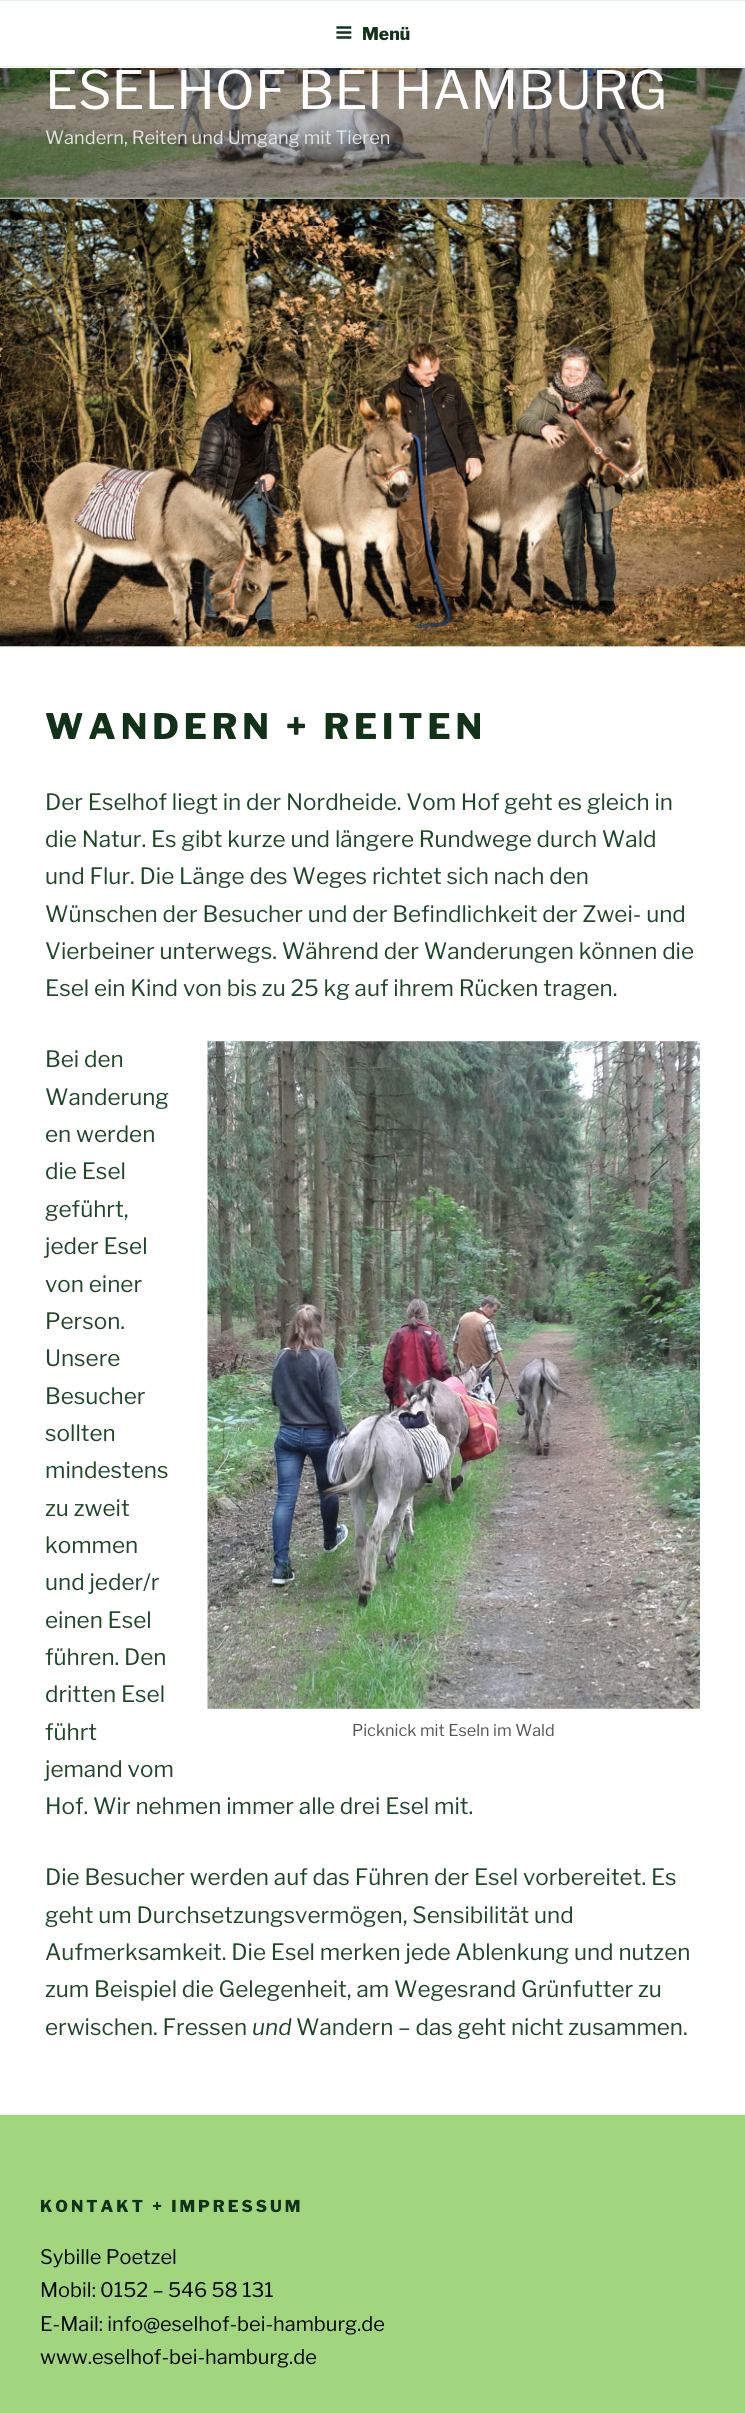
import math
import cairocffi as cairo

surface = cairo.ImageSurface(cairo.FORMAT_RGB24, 745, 2413)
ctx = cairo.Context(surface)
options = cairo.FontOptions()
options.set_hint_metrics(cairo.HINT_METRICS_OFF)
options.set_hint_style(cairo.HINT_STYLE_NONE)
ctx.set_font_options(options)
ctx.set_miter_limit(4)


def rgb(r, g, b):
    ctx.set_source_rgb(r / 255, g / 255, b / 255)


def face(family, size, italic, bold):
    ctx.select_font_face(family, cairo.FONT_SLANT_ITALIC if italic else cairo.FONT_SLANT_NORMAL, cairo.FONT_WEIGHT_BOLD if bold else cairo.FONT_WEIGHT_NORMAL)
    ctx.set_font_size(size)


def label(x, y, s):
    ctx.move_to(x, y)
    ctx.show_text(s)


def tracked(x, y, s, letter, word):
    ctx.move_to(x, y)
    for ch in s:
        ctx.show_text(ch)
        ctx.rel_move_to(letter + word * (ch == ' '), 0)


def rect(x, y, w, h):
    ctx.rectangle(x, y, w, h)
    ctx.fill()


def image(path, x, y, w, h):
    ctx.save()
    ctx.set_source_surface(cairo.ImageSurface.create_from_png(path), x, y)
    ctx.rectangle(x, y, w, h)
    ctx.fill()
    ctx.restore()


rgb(255, 255, 255)
ctx.paint()
rgb(247, 252, 248)
rect(0, 197, 745, 2)
rgb(228, 246, 232)
rect(0, 0, 745, 1)
rect(0, 66, 745, 1)
image('image0.png', 336, 26, 16, 13)
face('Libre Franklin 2 Thin', 17.5, 0, 0)
rgb(17, 50, 24)
label(362, 40, 'Menü')
image('image1.png', 0, 68, 745, 130)
gradient = cairo.LinearGradient(373, -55, 373, 199)
gradient.add_color_stop_rgba(0, 0, 0, 0, 0)
gradient.add_color_stop_rgba(0.75, 0, 0, 0, 0.3)
gradient.add_color_stop_rgba(1, 0, 0, 0, 0.3)
ctx.set_source(gradient)
rect(0, 68, 745, 131)
face('Libre Franklin Thin', 52.5, 0, 0)
rgb(255, 255, 255)
label(45, 109, 'ESELHOF BEI HAMBURG')
face('Libre Franklin Thin', 18.25, 0, 0)
rgb(227, 227, 225)
label(45, 144, 'Wandern, Reiten und Umgang mit Tieren')
rgb(247, 252, 248)
rect(0, 647, 745, 1)
rgb(228, 246, 232)
rect(0, 646, 745, 1)
image('image2.png', 0, 199, 745, 448)
face('Libre Franklin 2 Thin', 35, 0, 0)
rgb(17, 50, 24)
tracked(45, 739, 'WANDERN + REITEN', 4.9, 0)
face('Libre Franklin Thin', 22.5, 0, 0)
rgb(31, 71, 39)
label(45, 810, 'Der Eselhof liegt in der Nordheide. Vom Hof geht es gleich in')
label(45, 847, 'die Natur. Es gibt kurze und längere Rundwege durch Wald')
label(45, 884, 'und Flur. Die Länge des Weges richtet sich nach den')
label(45, 922, 'Wünschen der Besucher und der Befindlichkeit der Zwei- und')
label(45, 959, 'Vierbeiner unterwegs. Während der Wanderungen können die')
label(45, 996, 'Esel ein Kind von bis zu 25 kg auf ihrem Rücken tragen.')
label(45, 1067, 'Bei den')
label(45, 1105, 'Wanderung')
label(45, 1142, 'en werden')
label(45, 1179, 'die Esel')
label(45, 1217, 'geführt,')
label(45, 1254, 'jeder Esel')
label(45, 1292, 'von einer')
label(45, 1329, 'Person.')
label(45, 1366, 'Unsere')
label(45, 1404, 'Besucher')
label(45, 1441, 'sollten')
label(45, 1478, 'mindestens')
label(45, 1516, 'zu zweit')
label(45, 1553, 'kommen')
label(45, 1590, 'und jeder/r')
label(45, 1628, 'einen Esel')
label(45, 1665, 'führen. Den')
label(45, 1702, 'dritten Esel')
label(45, 1740, 'führt')
label(45, 1777, 'jemand vom')
label(45, 1814, 'Hof. Wir nehmen immer alle drei Esel mit.')
image('image3.png', 207, 1041, 493, 668)
face('Libre Franklin Thin', 16.25, 0, 0)
rgb(85, 85, 85)
label(352, 1736, 'Picknick mit Eseln im Wald')
face('Libre Franklin Thin', 22.5, 0, 0)
rgb(31, 71, 39)
label(45, 1885, 'Die Besucher werden auf das Führen der Esel vorbereitet. Es')
label(45, 1923, 'geht um Durchsetzungsvermögen, Sensibilität und')
label(45, 1960, 'Aufmerksamkeit. Die Esel merken jede Ablenkung und nutzen')
label(45, 1997, 'zum Beispiel die Gelegenheit, am Wegesrand Grünfutter zu')
label(45, 2035, 'erwischen. Fressen')
face('Libre Franklin Thin', 22.5, 1, 0)
label(252, 2035, 'und')
face('Libre Franklin Thin', 22.5, 0, 0)
label(296, 2035, 'Wandern – das geht nicht zusammen.')
rgb(162, 214, 126)
rect(0, 2115, 745, 298)
rgb(228, 246, 232)
rect(0, 2114, 745, 1)
face('Libre Franklin 2 Thin', 16.25, 0, 0)
rgb(17, 50, 24)
tracked(40, 2212, 'KONTAKT + IMPRESSUM', 3, 0)
face('Libre Franklin Thin', 20, 0, 0)
rgb(0, 0, 0)
label(40, 2264, 'Sybille Poetzel')
label(40, 2297, 'Mobil: 0152 – 546 58 131')
label(40, 2331, 'E-Mail: info@eselhof-bei-hamburg.de')
label(40, 2364, 'www.eselhof-bei-hamburg.de')
surface.write_to_png('render.png')
